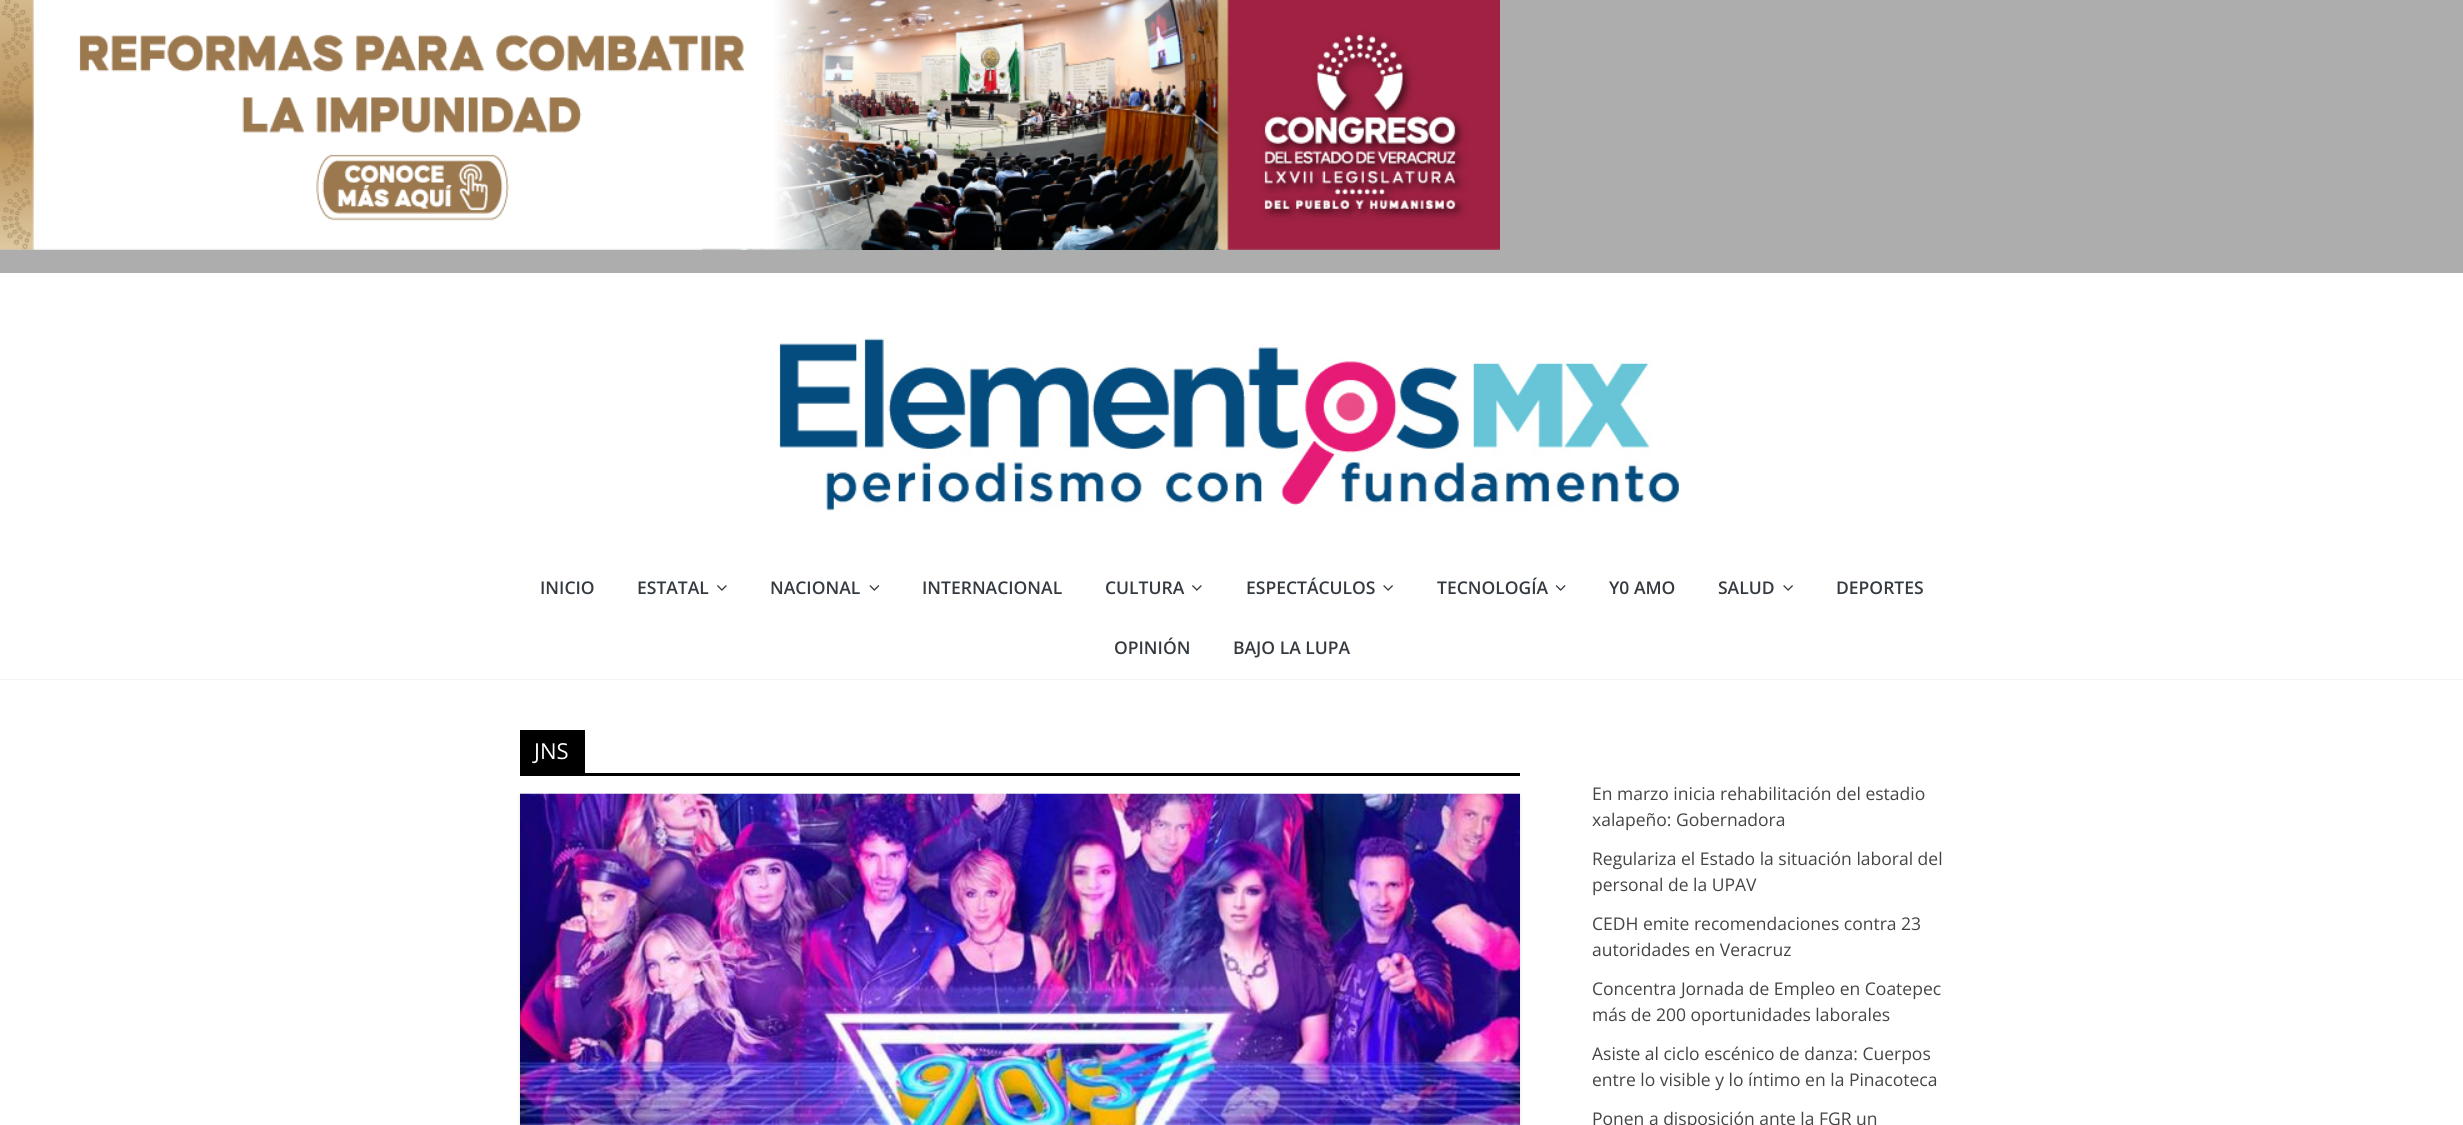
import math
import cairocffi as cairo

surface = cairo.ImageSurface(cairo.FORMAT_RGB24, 2463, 1125)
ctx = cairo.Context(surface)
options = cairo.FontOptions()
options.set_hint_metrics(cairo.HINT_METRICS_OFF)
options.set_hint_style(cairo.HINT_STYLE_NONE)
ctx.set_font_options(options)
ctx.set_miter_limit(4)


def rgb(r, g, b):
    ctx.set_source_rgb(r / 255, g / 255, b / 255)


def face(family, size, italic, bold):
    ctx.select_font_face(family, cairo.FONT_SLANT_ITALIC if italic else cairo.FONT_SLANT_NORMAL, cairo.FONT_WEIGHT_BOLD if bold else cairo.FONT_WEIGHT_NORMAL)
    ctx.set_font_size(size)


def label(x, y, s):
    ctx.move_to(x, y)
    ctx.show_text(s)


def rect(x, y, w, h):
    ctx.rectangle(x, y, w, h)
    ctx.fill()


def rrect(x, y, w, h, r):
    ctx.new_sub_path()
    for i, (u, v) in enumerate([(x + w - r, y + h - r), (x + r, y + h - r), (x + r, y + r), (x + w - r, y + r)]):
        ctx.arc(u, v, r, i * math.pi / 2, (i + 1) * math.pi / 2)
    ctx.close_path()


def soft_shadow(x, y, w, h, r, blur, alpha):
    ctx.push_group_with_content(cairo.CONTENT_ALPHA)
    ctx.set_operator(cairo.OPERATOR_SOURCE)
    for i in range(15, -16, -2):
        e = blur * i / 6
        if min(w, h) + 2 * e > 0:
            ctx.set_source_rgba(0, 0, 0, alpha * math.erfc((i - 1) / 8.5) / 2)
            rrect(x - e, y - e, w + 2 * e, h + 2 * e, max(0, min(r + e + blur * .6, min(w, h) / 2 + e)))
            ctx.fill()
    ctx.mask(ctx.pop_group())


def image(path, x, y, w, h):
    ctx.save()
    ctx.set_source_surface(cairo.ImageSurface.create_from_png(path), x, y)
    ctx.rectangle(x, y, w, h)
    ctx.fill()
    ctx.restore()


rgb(173, 173, 173)
ctx.paint()
image('image0.png', 0, 0, 1500, 250)
rgb(255, 255, 255)
rect(0, 273, 2463, 406)
image('image1.png', 779, 338, 900, 173)
rgb(243, 243, 243)
rect(0, 679, 2463, 1)
face('Open Sans SemiBold', 17.5, 0, 0)
rgb(52, 58, 64)
label(540, 594, 'INICIO')
label(637, 594, 'ESTATAL')
image('image2.png', 717, 585, 10, 6)
label(770, 594, 'NACIONAL')
image('image3.png', 869, 585, 11, 6)
label(922, 594, 'INTERNACIONAL')
label(1105, 594, 'CULTURA')
image('image2.png', 1192, 585, 10, 6)
label(1246, 594, 'ESPECTÁCULOS')
image('image4.png', 1383, 585, 10, 6)
label(1437, 594, 'TECNOLOGÍA')
image('image5.png', 1555, 585, 11, 6)
label(1609, 594, 'Y0 AMO')
label(1718, 594, 'SALUD')
image('image4.png', 1783, 585, 10, 6)
label(1836, 594, 'DEPORTES')
label(1114, 654, 'OPINIÓN')
label(1233, 654, 'BAJO LA LUPA')
rgb(255, 255, 255)
rect(0, 680, 2463, 445)
rgb(0, 0, 0)
rect(520, 773, 1000, 3)
rect(520, 730, 65, 43)
face('Open Sans', 22, 0, 0)
rgb(255, 255, 255)
label(534, 759, 'JNS')
rgb(0, 0, 0)
soft_shadow(520, 795, 1000, 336, 0, 2, 0.1)
image('image6.png', 520, 793, 1000, 332)
face('Open Sans', 17.5, 0, 0)
rgb(68, 68, 68)
label(1592, 800, 'En marzo inicia rehabilitación del estadio')
label(1592, 826, 'xalapeño: Gobernadora')
label(1592, 865, 'Regulariza el Estado la situación laboral del')
label(1592, 891, 'personal de la UPAV')
label(1592, 930, 'CEDH emite recomendaciones contra 23')
label(1592, 956, 'autoridades en Veracruz')
label(1592, 995, 'Concentra Jornada de Empleo en Coatepec')
label(1592, 1021, 'más de 200 oportunidades laborales')
label(1592, 1060, 'Asiste al ciclo escénico de danza: Cuerpos')
label(1592, 1086, 'entre lo visible y lo íntimo en la Pinacoteca')
label(1592, 1125, 'Ponen a disposición ante la FGR un')
surface.write_to_png('render.png')
